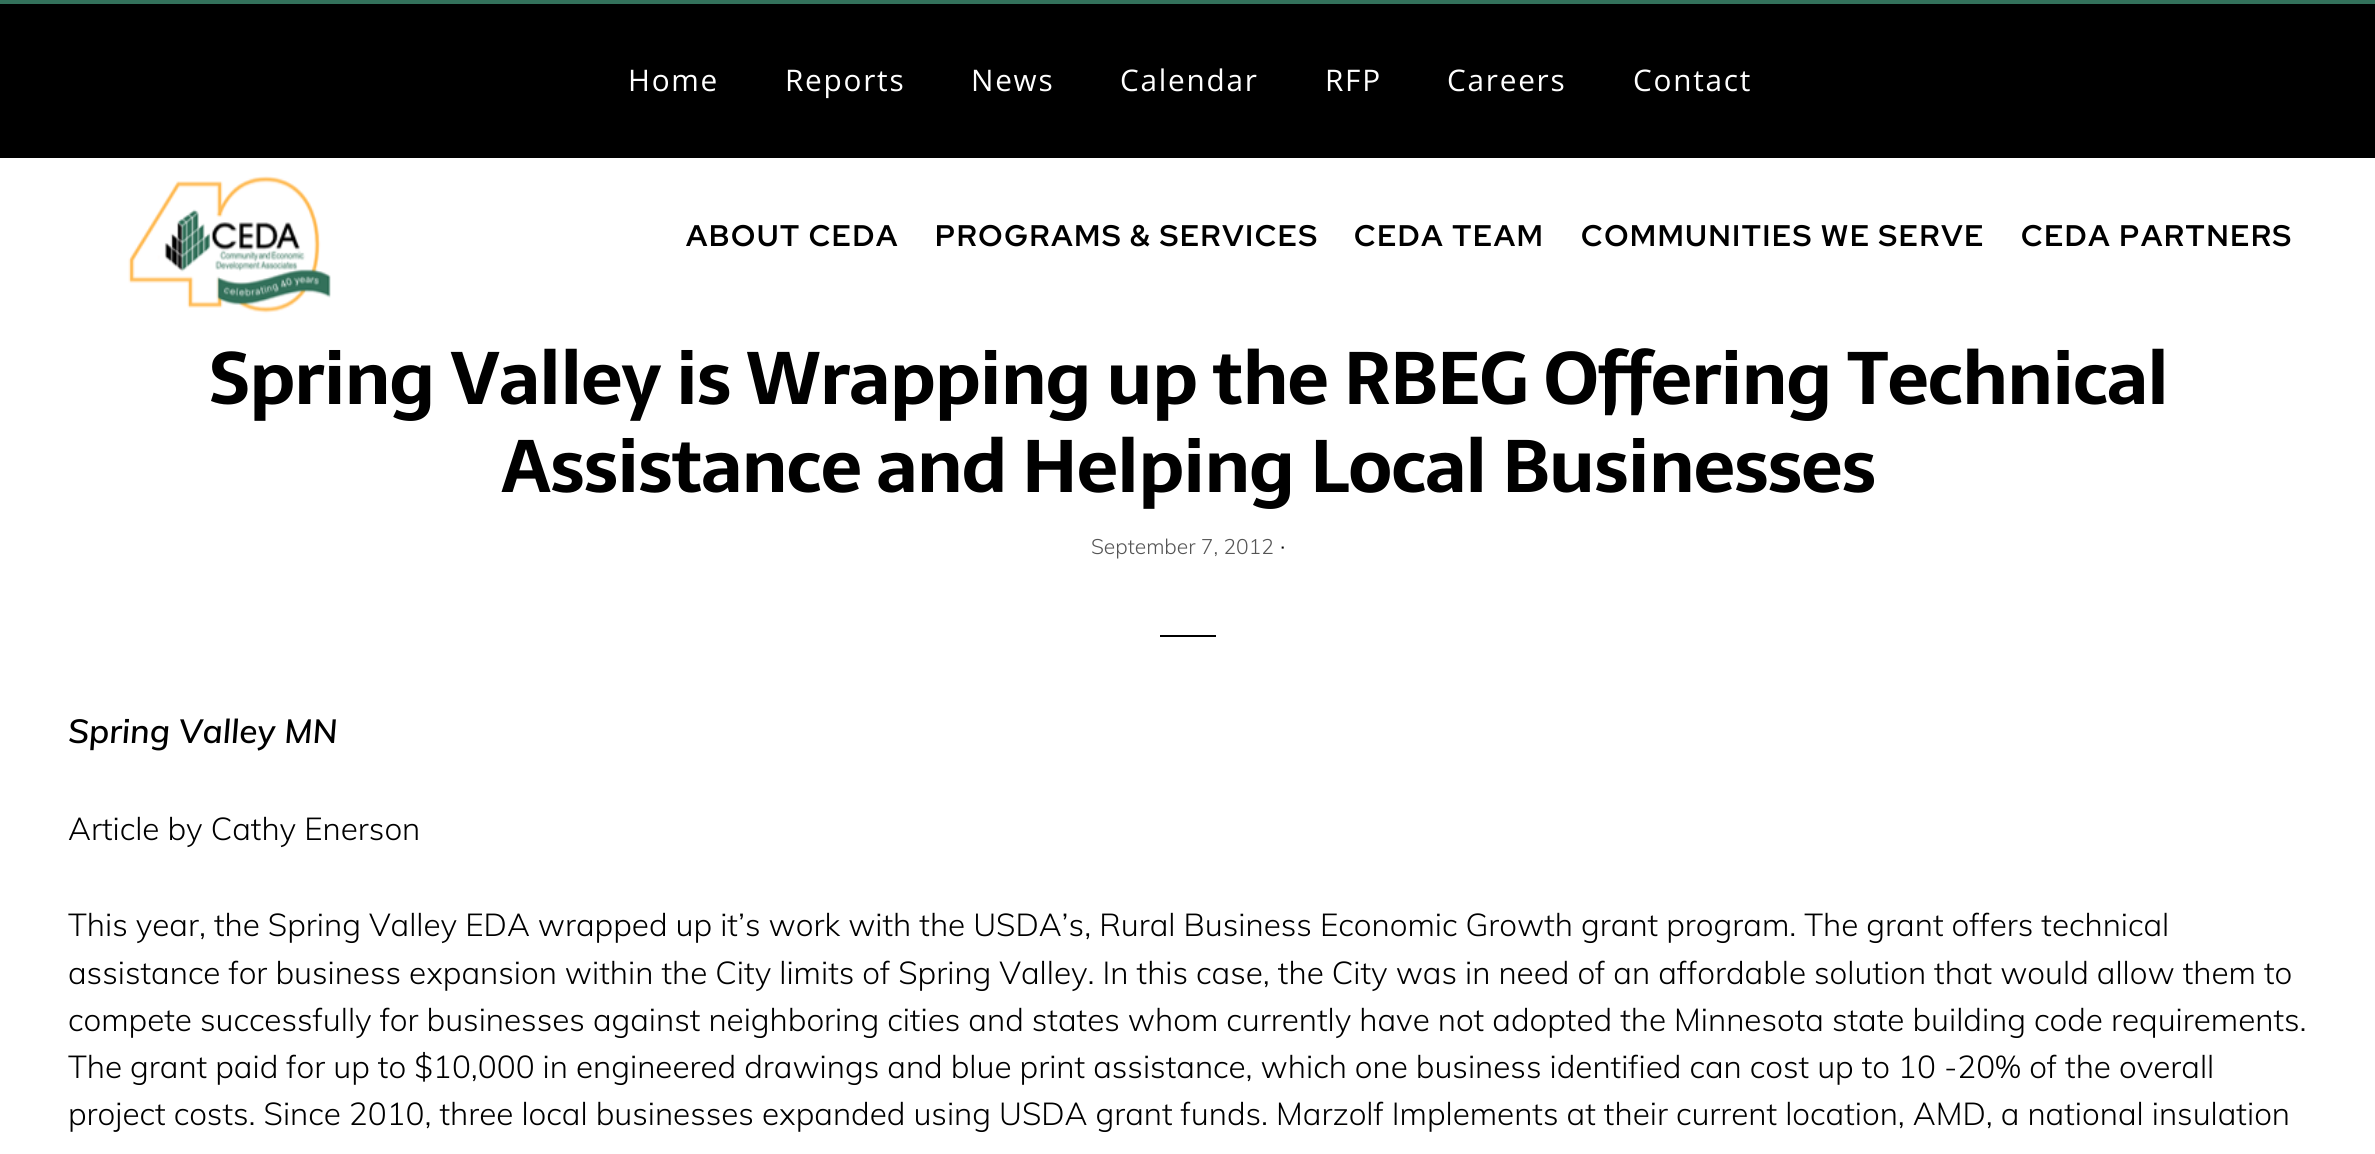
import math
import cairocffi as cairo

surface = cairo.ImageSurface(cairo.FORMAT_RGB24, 2375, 1154)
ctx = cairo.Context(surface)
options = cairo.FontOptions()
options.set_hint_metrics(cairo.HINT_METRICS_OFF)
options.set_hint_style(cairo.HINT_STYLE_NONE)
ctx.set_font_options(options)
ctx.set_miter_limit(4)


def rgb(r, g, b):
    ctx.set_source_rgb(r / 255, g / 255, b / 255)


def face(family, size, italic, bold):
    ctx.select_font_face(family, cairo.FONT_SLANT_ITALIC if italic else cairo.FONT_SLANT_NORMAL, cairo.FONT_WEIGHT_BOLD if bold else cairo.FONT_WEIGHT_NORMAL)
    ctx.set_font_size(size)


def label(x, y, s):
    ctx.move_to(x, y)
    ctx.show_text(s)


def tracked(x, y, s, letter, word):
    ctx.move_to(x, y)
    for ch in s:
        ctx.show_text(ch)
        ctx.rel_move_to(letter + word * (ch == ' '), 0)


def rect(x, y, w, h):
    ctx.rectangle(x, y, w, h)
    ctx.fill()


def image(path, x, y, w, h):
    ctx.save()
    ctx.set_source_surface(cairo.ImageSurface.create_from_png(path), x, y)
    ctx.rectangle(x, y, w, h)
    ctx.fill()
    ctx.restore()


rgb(255, 255, 255)
ctx.paint()
rgb(0, 0, 0)
rect(0, 4, 2375, 154)
rgb(51, 113, 91)
rect(0, 0, 2375, 4)
face('Open Sans', 29.75, 0, 0)
rgb(255, 255, 255)
tracked(628, 91, 'Home', 1.75, 0)
tracked(785, 91, 'Reports', 1.75, 0)
tracked(971, 91, 'News', 1.75, 0)
tracked(1120, 91, 'Calendar', 1.75, 0)
tracked(1325, 91, 'RFP', 1.75, 0)
tracked(1447, 91, 'Careers', 1.75, 0)
tracked(1633, 91, 'Contact', 1.75, 0)
image('image0.png', 128, 176, 203, 138)
face('Red Hat Display', 29.75, 0, 1)
rgb(0, 0, 0)
tracked(686, 246, 'ABOUT CEDA', 1.75, 0)
tracked(935, 246, 'PROGRAMS & SERVICES', 1.75, 0)
tracked(1354, 246, 'CEDA TEAM', 1.75, 0)
tracked(1581, 246, 'COMMUNITIES WE SERVE', 1.75, 0)
tracked(2021, 246, 'CEDA PARTNERS', 1.75, 0)
face('Sarala', 73.5, 0, 1)
tracked(209, 404, 'Spring Valley is Wrapping up the RBEG Offering Technical', -0.88, 0)
tracked(501, 492, 'Assistance and Helping Local Businesses', -0.88, 0)
face('Muli Light', 21, 0, 0)
rgb(85, 85, 85)
label(1091, 554, 'September 7, 2012')
face('Muli Light', 24, 0, 0)
rgb(0, 0, 0)
label(1280, 554, '·')
rect(1160, 635, 56, 2)
face('Muli SemiBold', 33.25, 1, 0)
label(68, 743, 'Spring Valley MN')
face('Muli Light', 31.5, 0, 0)
label(68, 840, 'Article by Cathy Enerson')
label(68, 936, 'This year, the Spring Valley EDA wrapped up it’s work with the USDA’s, Rural Business Economic Growth grant program. The grant offers technical')
label(68, 984, 'assistance for business expansion within the City limits of Spring Valley. In this case, the City was in need of an affordable solution that would allow them to')
label(68, 1031, 'compete successfully for businesses against neighboring cities and states whom currently have not adopted the Minnesota state building code requirements.')
label(68, 1078, 'The grant paid for up to $10,000 in engineered drawings and blue print assistance, which one business identified can cost up to 10 -20% of the overall')
label(68, 1125, 'project costs. Since 2010, three local businesses expanded using USDA grant funds. Marzolf Implements at their current location, AMD, a national insulation')
surface.write_to_png('render.png')
